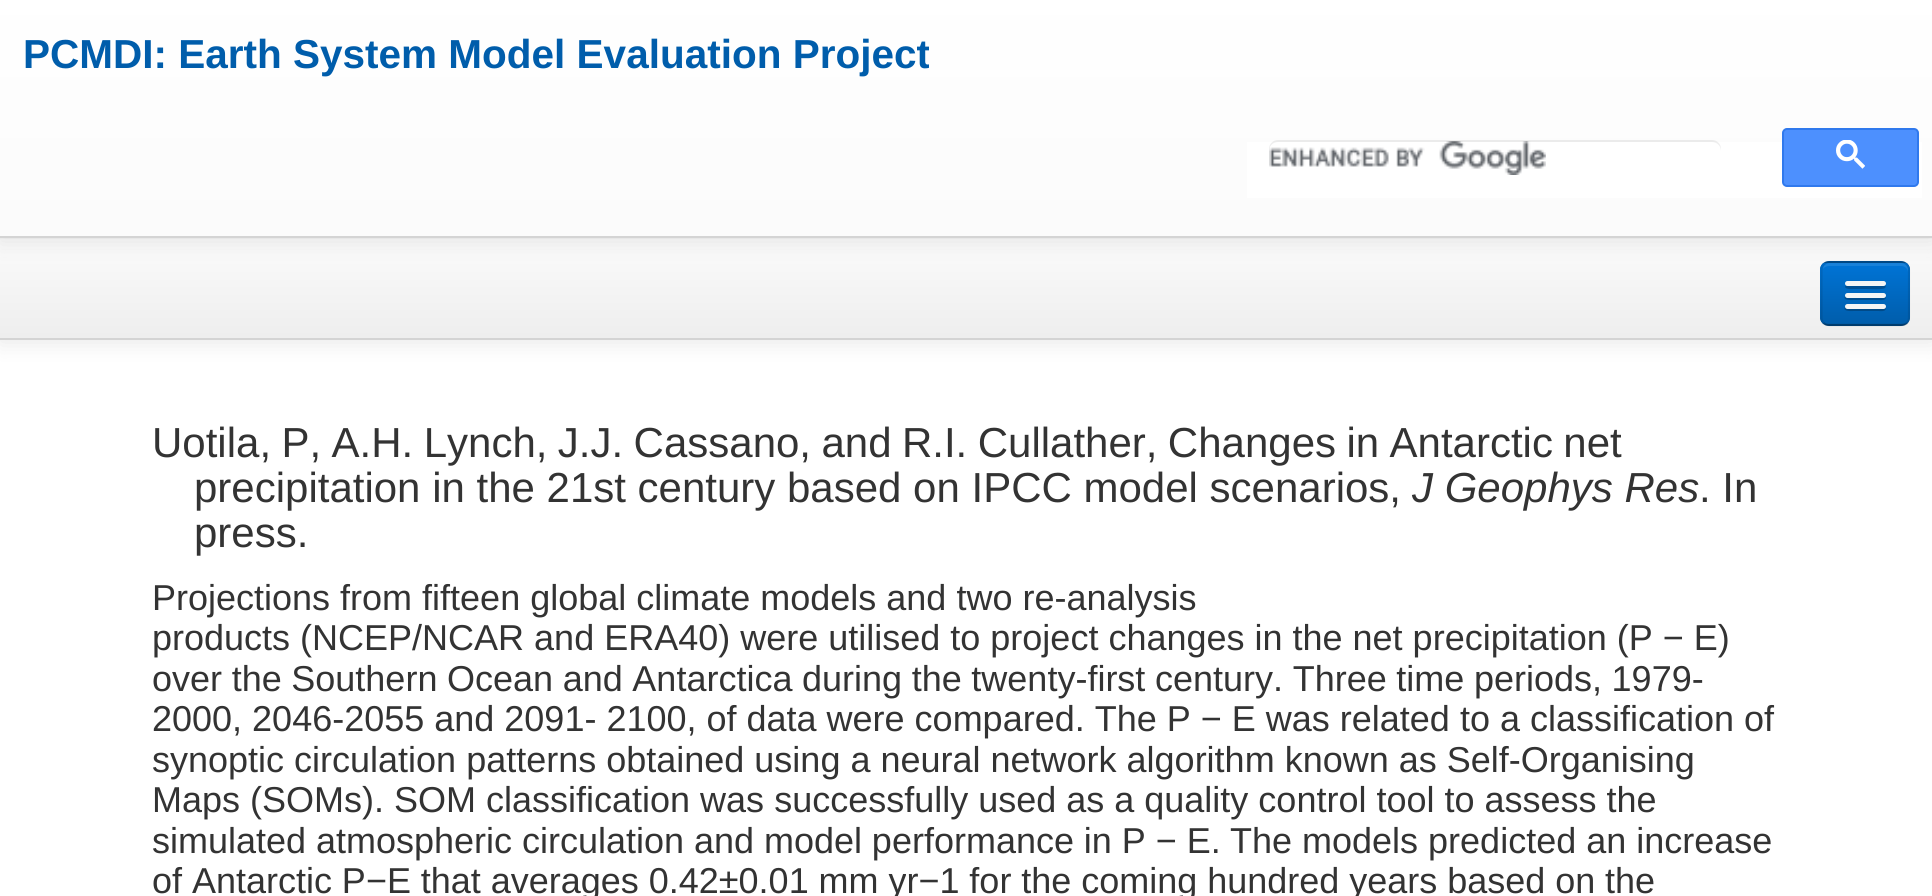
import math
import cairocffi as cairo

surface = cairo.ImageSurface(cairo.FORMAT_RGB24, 1932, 896)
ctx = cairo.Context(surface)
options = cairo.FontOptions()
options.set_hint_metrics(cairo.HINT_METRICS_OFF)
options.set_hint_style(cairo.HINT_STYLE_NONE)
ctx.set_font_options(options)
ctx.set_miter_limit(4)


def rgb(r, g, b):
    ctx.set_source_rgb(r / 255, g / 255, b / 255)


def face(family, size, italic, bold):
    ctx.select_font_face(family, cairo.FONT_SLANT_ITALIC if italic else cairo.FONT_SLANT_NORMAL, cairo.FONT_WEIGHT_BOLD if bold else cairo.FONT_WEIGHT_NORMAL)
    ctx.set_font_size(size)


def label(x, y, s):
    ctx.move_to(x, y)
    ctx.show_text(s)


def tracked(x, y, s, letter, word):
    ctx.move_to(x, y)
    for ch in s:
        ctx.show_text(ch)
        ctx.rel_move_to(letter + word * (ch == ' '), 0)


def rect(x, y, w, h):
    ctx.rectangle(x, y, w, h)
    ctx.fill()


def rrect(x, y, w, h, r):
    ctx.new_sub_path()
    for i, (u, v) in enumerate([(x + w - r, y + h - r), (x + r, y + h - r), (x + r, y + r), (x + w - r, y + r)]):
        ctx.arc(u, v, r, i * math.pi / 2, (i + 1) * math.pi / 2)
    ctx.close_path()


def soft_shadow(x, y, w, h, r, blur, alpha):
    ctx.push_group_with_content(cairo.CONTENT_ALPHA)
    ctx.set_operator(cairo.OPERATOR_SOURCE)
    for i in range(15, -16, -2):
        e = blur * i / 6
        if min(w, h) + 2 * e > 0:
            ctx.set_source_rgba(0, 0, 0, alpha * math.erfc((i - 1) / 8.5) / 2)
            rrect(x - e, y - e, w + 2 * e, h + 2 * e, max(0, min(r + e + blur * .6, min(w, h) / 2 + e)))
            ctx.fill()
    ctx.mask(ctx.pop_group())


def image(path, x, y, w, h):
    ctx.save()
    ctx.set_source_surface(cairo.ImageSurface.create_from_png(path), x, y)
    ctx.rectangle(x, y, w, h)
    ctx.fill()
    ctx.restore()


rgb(255, 255, 255)
ctx.paint()
rgb(0, 0, 0)
soft_shadow(0, 241, 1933, 101, 0, 11, 0.1)
gradient = cairo.LinearGradient(966, 238, 966, 338)
gradient.add_color_stop_rgba(0, 0.984, 0.984, 0.984, 1)
gradient.add_color_stop_rgba(1, 0.933, 0.933, 0.933, 1)
ctx.set_source(gradient)
rect(0, 239, 1932, 99)
rgb(0, 0, 0)
soft_shadow(0, -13, 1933, 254, 0, 11, 0.1)
gradient = cairo.LinearGradient(966, -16, 966, 236)
gradient.add_color_stop_rgba(0, 1, 1, 1, 1)
gradient.add_color_stop_rgba(1, 0.984, 0.984, 0.984, 1)
ctx.set_source(gradient)
rect(0, 0, 1932, 236)
rgb(212, 212, 212)
rect(0, 236, 1932, 2)
face('Liberation Sans', 40.5, 0, 1)
rgb(0, 93, 171)
label(23, 68, 'PCMDI: Earth System Model Evaluation Project')
rgb(255, 255, 255)
rect(1247, 142, 675, 56)
image('image0.png', 1269, 141, 277, 34)
ctx.set_source_rgba(0, 0, 0, 0.07)
ctx.new_path()
ctx.move_to(1278, 142)
ctx.line_to(1712, 142)
ctx.curve_to(1717, 142, 1721, 146, 1721, 151)
ctx.line_to(1721, 149)
ctx.curve_to(1721, 144, 1717, 140, 1712, 140)
ctx.line_to(1278, 140)
ctx.curve_to(1273, 140, 1269, 144, 1269, 149)
ctx.line_to(1269, 151)
ctx.curve_to(1269, 146, 1273, 142, 1278, 142)
ctx.close_path()
ctx.fill()
rgb(77, 144, 254)
rrect(1783, 129, 135, 57, 4)
ctx.fill_preserve()
rgb(48, 121, 237)
ctx.stroke()
image('image1.png', 1836, 140, 29, 29)
rgb(212, 212, 212)
rect(0, 338, 1932, 2)
rgb(0, 80, 147)
rrect(1820, 261, 90, 65, 9)
ctx.fill()
ctx.save()
rrect(1820, 261, 90, 65, 9)
ctx.clip()
gradient = cairo.LinearGradient(1865, 263, 1865, 324)
gradient.add_color_stop_rgba(0, 0, 0.455, 0.839, 1)
gradient.add_color_stop_rgba(1, 0, 0.365, 0.671, 1)
ctx.set_source(gradient)
rect(1820, 263, 90, 61)
ctx.restore()
ctx.set_source_rgba(1, 1, 1, 0.1)
ctx.new_path()
ctx.move_to(1829, 266)
ctx.line_to(1901, 266)
ctx.curve_to(1905, 266, 1908, 269, 1908, 272)
ctx.line_to(1908, 270)
ctx.curve_to(1908, 266, 1905, 263, 1901, 263)
ctx.line_to(1830, 263)
ctx.curve_to(1826, 263, 1823, 266, 1823, 269)
ctx.curve_to(1824, 267, 1827, 266, 1829, 266)
ctx.close_path()
ctx.fill()
ctx.new_path()
ctx.move_to(1907, 323)
ctx.curve_to(1905.5, 324.5, 1903.5, 325, 1901, 325)
ctx.line_to(1829, 325)
ctx.curve_to(1827, 325, 1825, 324.5, 1823.5, 323)
ctx.set_source_rgba(0, 0, 0, 0.25)
ctx.set_line_width(2.2)
ctx.stroke()
ctx.new_path()
ctx.move_to(1823.5, 323)
ctx.curve_to(1822, 321.5, 1821.5, 319.5, 1821.5, 317)
ctx.line_to(1821.5, 270)
ctx.curve_to(1821.5, 268, 1822, 266, 1823.5, 264.5)
ctx.curve_to(1825, 263, 1827, 262, 1829, 262)
ctx.line_to(1901, 262)
ctx.curve_to(1903.5, 262, 1905.5, 263, 1907, 264.5)
ctx.curve_to(1908.5, 266, 1909, 268, 1909, 270)
ctx.line_to(1909, 317)
ctx.curve_to(1909, 319.5, 1908.5, 321.5, 1907, 323)
ctx.set_source_rgba(0, 0, 0, 0.1)
ctx.stroke()
rgb(0, 80, 148)
ctx.new_path()
ctx.move_to(1846, 285)
ctx.curve_to(1842, 290, 1853, 289, 1854, 289)
ctx.line_to(1866, 289)
ctx.curve_to(1869, 289, 1883, 290, 1885, 288)
ctx.curve_to(1886, 287, 1886, 286, 1885, 285)
ctx.line_to(1884, 286)
ctx.line_to(1847, 286)
ctx.close_path()
ctx.fill()
rgb(245, 245, 245)
rrect(1845, 281, 41, 5, 2.5)
ctx.fill()
rgb(0, 77, 142)
ctx.new_path()
ctx.move_to(1845, 296)
ctx.curve_to(1842, 301, 1853, 300, 1854, 300)
ctx.line_to(1878, 300)
ctx.curve_to(1879, 300, 1885, 301, 1886, 298)
ctx.line_to(1885, 296)
ctx.line_to(1884, 297)
ctx.line_to(1847, 297)
ctx.close_path()
ctx.fill()
rgb(245, 245, 245)
rrect(1845, 293, 41, 5, 2.5)
ctx.fill()
rgb(0, 74, 136)
ctx.new_path()
ctx.move_to(1845, 307)
ctx.curve_to(1842, 312, 1853, 311, 1854, 311)
ctx.line_to(1878, 311)
ctx.curve_to(1879, 311, 1885, 312, 1886, 309)
ctx.line_to(1885, 307)
ctx.line_to(1884, 308)
ctx.line_to(1847, 308)
ctx.close_path()
ctx.fill()
rgb(245, 245, 245)
rrect(1845, 304, 41, 5, 2.5)
ctx.fill()
face('Liberation Sans', 42, 0, 0)
rgb(51, 51, 51)
tracked(152, 457, 'Uotila, P, A.H. Lynch, J.J. Cassano, and R.I. Cullather, Changes in Antarctic net', 0, -1.25)
label(194, 502, 'precipitation in the 21st century based on IPCC model scenarios,')
face('Liberation Sans', 42, 1, 0)
label(1412, 502, 'J Geophys Res')
face('Liberation Sans', 42, 0, 0)
label(1699, 502, '. In')
label(194, 547, 'press.')
face('Liberation Sans', 36, 0, 0)
label(152, 610, 'Projections from fifteen global climate models and two re-analysis')
label(152, 650, 'products (NCEP/NCAR and ERA40) were utilised to project changes in the net precipitation (P − E)')
tracked(152, 691, 'over the Southern Ocean and Antarctica during the twenty-first century. Three time periods, 1979-', 0, -0.4)
label(152, 731, '2000, 2046-2055 and 2091- 2100, of data were compared. The P − E was related to a classification of')
label(152, 772, 'synoptic circulation patterns obtained using a neural network algorithm known as Self-Organising')
label(152, 812, 'Maps (SOMs). SOM classification was successfully used as a quality control tool to assess the')
tracked(152, 853, 'simulated atmospheric circulation and model performance in P − E.', 0, -0.1)
label(1230, 853, 'The models predicted an increase')
tracked(152, 893, 'of Antarctic P−E that averages 0.42±0.01 mm yr−1 for the coming hundred years based on the', 0, -0.1)
surface.write_to_png('render.png')
